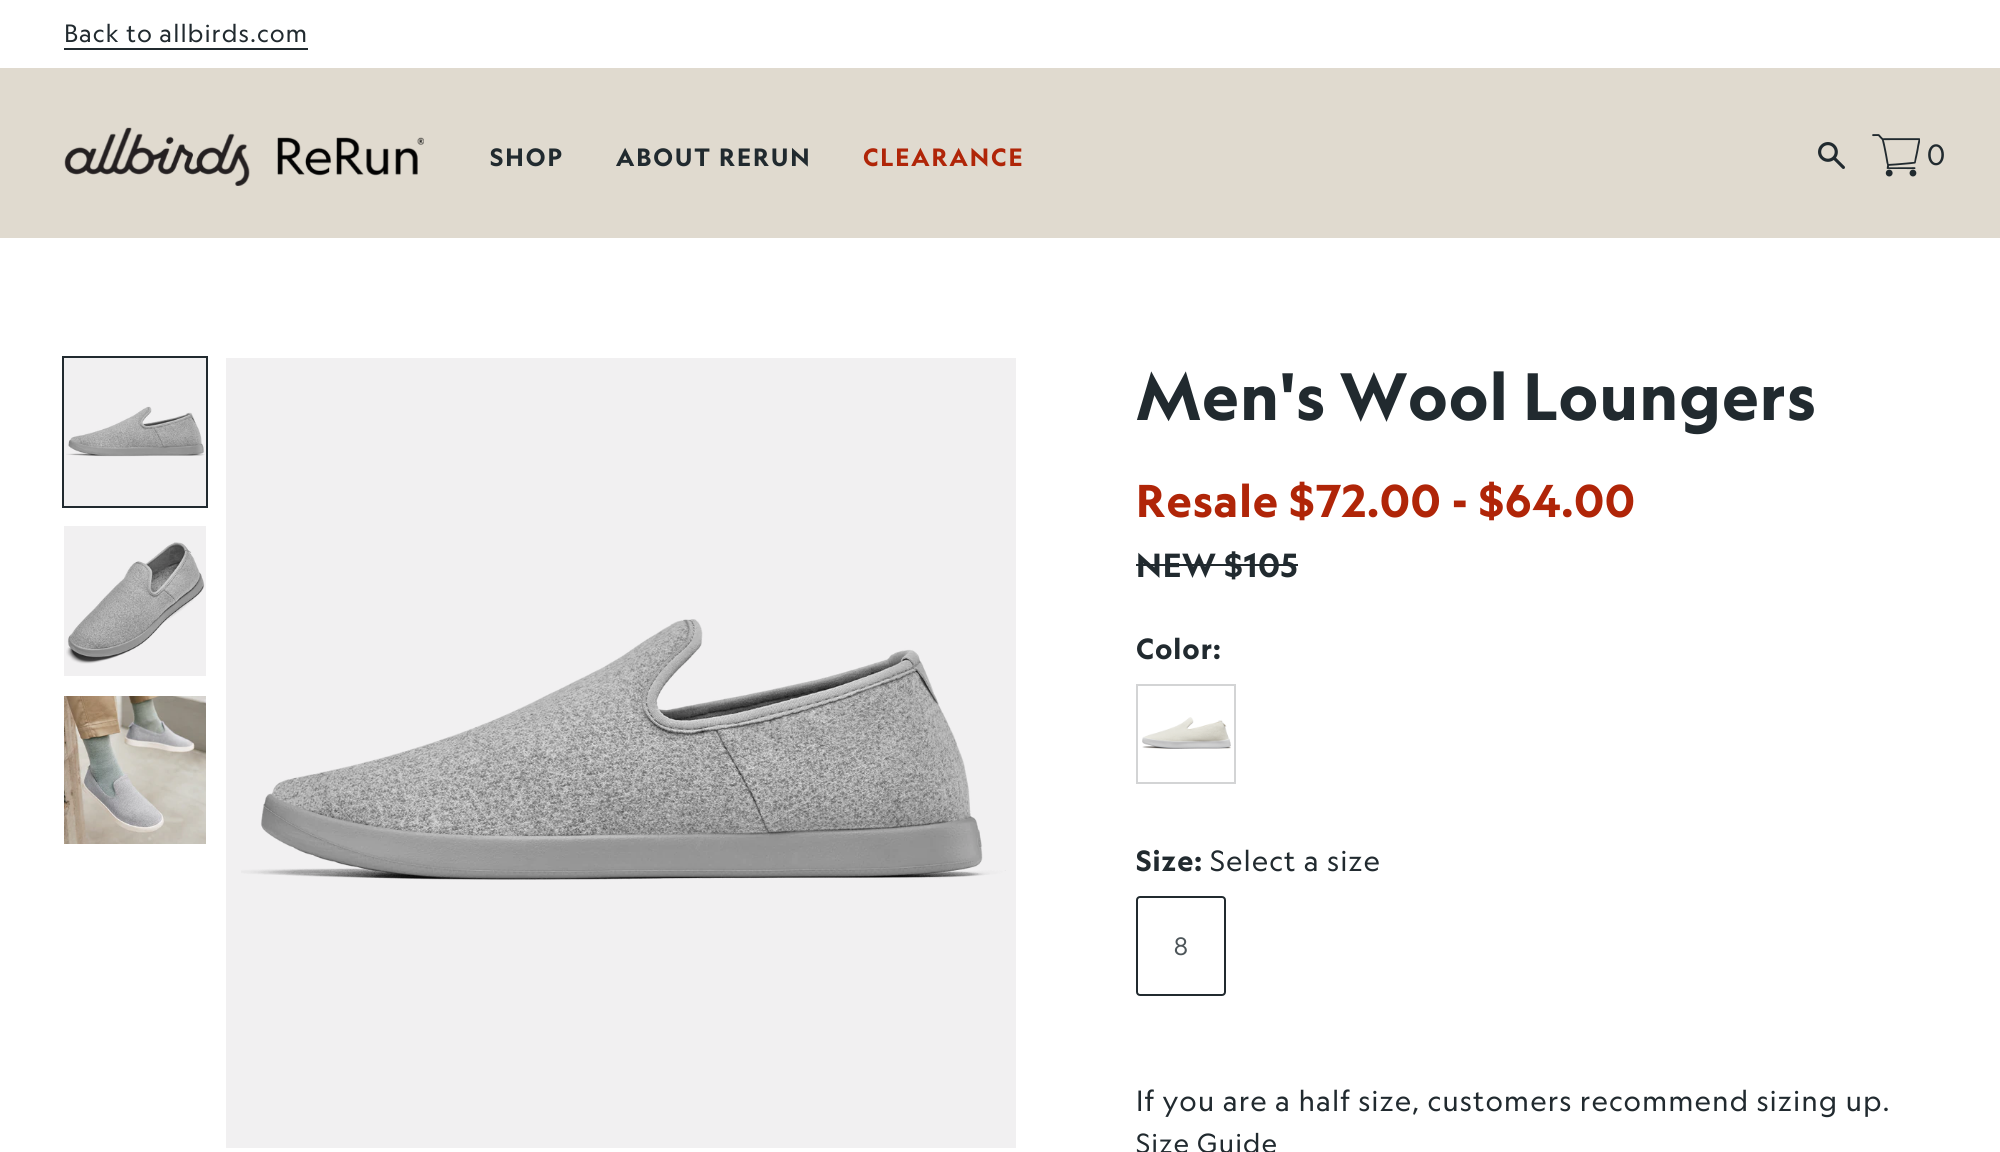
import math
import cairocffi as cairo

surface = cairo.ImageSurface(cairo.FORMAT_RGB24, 2000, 1152)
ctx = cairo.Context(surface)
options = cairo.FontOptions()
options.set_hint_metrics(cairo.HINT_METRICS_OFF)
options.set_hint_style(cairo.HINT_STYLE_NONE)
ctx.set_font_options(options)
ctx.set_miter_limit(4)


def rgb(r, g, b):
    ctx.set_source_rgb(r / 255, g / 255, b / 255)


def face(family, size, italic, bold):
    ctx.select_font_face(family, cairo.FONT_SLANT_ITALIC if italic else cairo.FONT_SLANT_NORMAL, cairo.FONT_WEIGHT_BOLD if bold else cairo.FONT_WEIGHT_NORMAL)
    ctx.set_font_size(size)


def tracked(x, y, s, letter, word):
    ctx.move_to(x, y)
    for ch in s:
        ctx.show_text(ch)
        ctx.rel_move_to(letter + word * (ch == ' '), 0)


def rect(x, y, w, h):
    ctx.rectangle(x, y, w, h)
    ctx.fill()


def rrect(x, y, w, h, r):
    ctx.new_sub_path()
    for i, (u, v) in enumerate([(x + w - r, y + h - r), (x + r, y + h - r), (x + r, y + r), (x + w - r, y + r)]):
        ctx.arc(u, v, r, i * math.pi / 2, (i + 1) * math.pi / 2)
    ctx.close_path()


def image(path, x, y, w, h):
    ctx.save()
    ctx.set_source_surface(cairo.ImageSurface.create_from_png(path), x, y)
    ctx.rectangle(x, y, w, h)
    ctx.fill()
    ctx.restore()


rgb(255, 255, 255)
ctx.paint()
face('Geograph', 24, 0, 0)
rgb(33, 42, 47)
tracked(64, 42, 'Back to allbirds.com', 1, 0)
rect(64, 48, 244, 2)
rgb(224, 218, 207)
rect(0, 68, 2000, 170)
image('image0.png', 64, 127, 360, 59)
face('Geograph', 24, 0, 1)
rgb(33, 42, 47)
tracked(490, 166, 'SHOP', 2, 0)
tracked(616, 166, 'ABOUT RERUN', 2, 0)
rgb(176, 37, 8)
tracked(863, 166, 'CLEARANCE', 2, 0)
image('image1.png', 1818, 142, 27, 27)
image('image2.png', 1872, 134, 48, 43)
face('Geograph', 28, 0, 0)
rgb(33, 42, 47)
tracked(1927, 165, '0', 1, 0)
ctx.rectangle(63, 357, 144, 150)
ctx.stroke()
rgb(241, 240, 241)
rect(64, 358, 142, 148)
image('image3.png', 66, 406, 139, 51)
rect(64, 526, 142, 150)
image('image4.png', 66, 542, 139, 122)
image('image5.png', 64, 696, 142, 148)
rect(226, 358, 790, 790)
image('image6.png', 241, 619, 765, 261)
face('Geograph', 64, 0, 1)
rgb(33, 42, 47)
tracked(1136, 420, 'Men\'s Wool Loungers', 1, 0)
face('Geograph', 44, 0, 1)
rgb(176, 37, 8)
tracked(1136, 517, 'Resale $72.00 - $64.00', 1, 0)
face('Geograph', 32, 0, 1)
rgb(33, 42, 47)
tracked(1136, 577, 'NEW $105', 1, 0)
rect(1136, 564, 162, 2)
face('Geograph', 28, 0, 1)
tracked(1136, 659, 'Color:', 1, 0)
image('image7.png', 1142, 717, 89, 32)
ctx.rectangle(1137, 685, 98, 98)
rgb(211, 212, 213)
ctx.stroke()
rgb(33, 42, 47)
tracked(1136, 871, 'Size:', 1, 0)
face('Geograph', 28, 0, 0)
tracked(1210, 871, 'Select a size', 1, 0)
rrect(1137, 897, 88, 98, 3)
ctx.stroke()
face('Geograph', 24, 0, 0)
rgb(77, 85, 89)
tracked(1174, 955, '8', 1, 0)
face('Geograph', 28, 0, 0)
rgb(33, 42, 47)
tracked(1136, 1111, 'If you are a half size, customers recommend sizing up.', 1, 0)
face('Geograph', 26.5, 0, 0)
tracked(1136, 1153, 'Size Guide', 1, 0)
surface.write_to_png('render.png')
